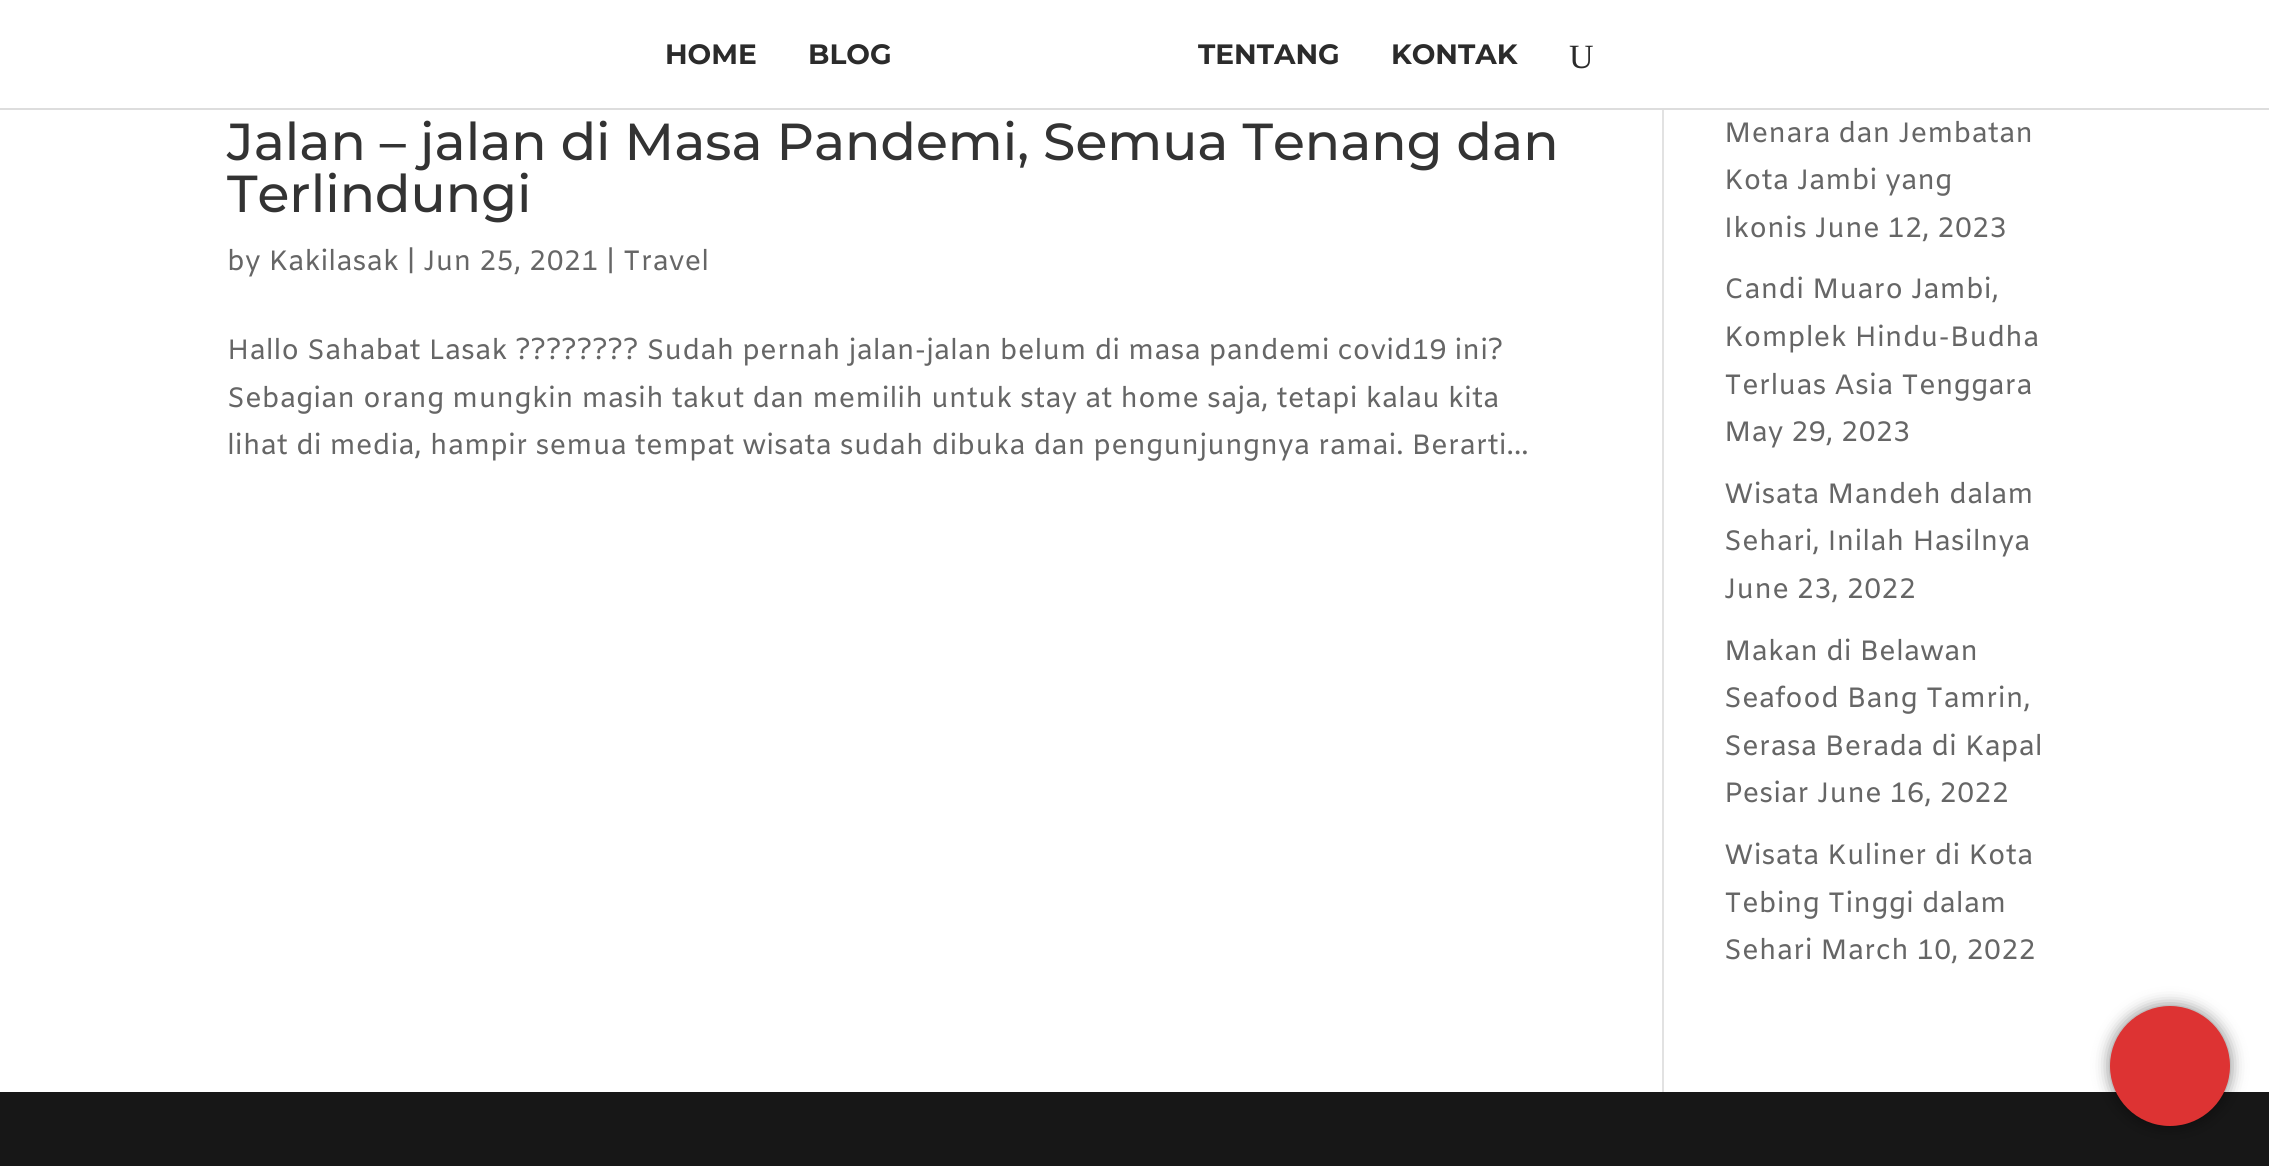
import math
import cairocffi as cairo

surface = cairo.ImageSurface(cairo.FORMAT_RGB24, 2269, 1166)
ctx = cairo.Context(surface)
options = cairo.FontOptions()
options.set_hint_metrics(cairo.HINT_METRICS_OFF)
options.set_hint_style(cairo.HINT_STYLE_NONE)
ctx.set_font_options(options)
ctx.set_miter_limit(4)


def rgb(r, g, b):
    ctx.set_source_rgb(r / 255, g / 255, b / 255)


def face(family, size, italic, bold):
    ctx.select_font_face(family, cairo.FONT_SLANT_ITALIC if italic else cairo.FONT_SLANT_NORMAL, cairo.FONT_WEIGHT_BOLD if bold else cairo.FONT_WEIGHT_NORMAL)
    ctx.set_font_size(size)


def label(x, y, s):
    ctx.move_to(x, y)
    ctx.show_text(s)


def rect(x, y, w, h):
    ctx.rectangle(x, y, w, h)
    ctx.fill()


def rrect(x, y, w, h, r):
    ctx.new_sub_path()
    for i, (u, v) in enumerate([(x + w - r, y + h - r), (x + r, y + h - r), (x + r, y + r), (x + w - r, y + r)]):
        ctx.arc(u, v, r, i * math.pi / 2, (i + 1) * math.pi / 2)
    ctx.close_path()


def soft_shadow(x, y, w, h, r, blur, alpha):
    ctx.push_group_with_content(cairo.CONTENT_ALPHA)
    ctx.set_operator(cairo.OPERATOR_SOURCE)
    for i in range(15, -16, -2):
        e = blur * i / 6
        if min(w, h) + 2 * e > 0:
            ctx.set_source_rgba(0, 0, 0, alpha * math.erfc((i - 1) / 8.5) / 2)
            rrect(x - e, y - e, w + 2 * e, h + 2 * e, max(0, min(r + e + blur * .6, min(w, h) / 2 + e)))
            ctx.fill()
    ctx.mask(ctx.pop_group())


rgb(255, 255, 255)
ctx.paint()
rgb(221, 221, 221)
rect(0, 108, 2269, 2)
face('Montserrat', 28, 0, 1)
rgb(43, 43, 43)
label(665, 64, 'HOME')
label(808, 64, 'BLOG')
label(1198, 64, 'TENTANG')
label(1391, 64, 'KONTAK')
face('Liberation Serif', 34, 0, 0)
label(1569, 68, 'U')
rgb(226, 226, 226)
rect(1662, 110, 2, 982)
face('Montserrat Medium', 52, 0, 0)
rgb(51, 51, 51)
label(227, 160, 'Jalan – jalan di Masa Pandemi, Semua Tenang dan')
label(227, 212, 'Terlindungi')
face('Amiko', 28, 0, 0)
rgb(102, 102, 102)
label(227, 270, 'by Kakilasak | Jun 25, 2021 | Travel')
label(227, 359, 'Hallo Sahabat Lasak ???????? Sudah pernah jalan-jalan belum di masa pandemi covid19 ini?')
label(227, 407, 'Sebagian orang mungkin masih takut dan memilih untuk stay at home saja, tetapi kalau kita')
label(227, 454, 'lihat di media, hampir semua tempat wisata sudah dibuka dan pengunjungnya ramai. Berarti...')
label(1724, 142, 'Menara dan Jembatan')
label(1724, 189, 'Kota Jambi yang')
label(1724, 237, 'Ikonis June 12, 2023')
label(1724, 298, 'Candi Muaro Jambi,')
label(1724, 346, 'Komplek Hindu-Budha')
label(1724, 394, 'Terluas Asia Tenggara')
label(1724, 441, 'May 29, 2023')
label(1724, 503, 'Wisata Mandeh dalam')
label(1724, 550, 'Sehari, Inilah Hasilnya')
label(1724, 598, 'June 23, 2022')
label(1724, 660, 'Makan di Belawan')
label(1724, 707, 'Seafood Bang Tamrin,')
label(1724, 755, 'Serasa Berada di Kapal')
label(1724, 802, 'Pesiar June 16, 2022')
label(1724, 864, 'Wisata Kuliner di Kota')
label(1724, 912, 'Tebing Tinggi dalam')
label(1724, 959, 'Sehari March 10, 2022')
rgb(23, 23, 23)
rect(0, 1092, 2269, 74)
rgb(0, 0, 0)
soft_shadow(2110, 1006, 120, 120, 60, 8, 0.5)
rgb(221, 51, 51)
ctx.arc(2170, 1066, 60, 0, 2 * math.pi)
ctx.fill()
surface.write_to_png('render.png')
